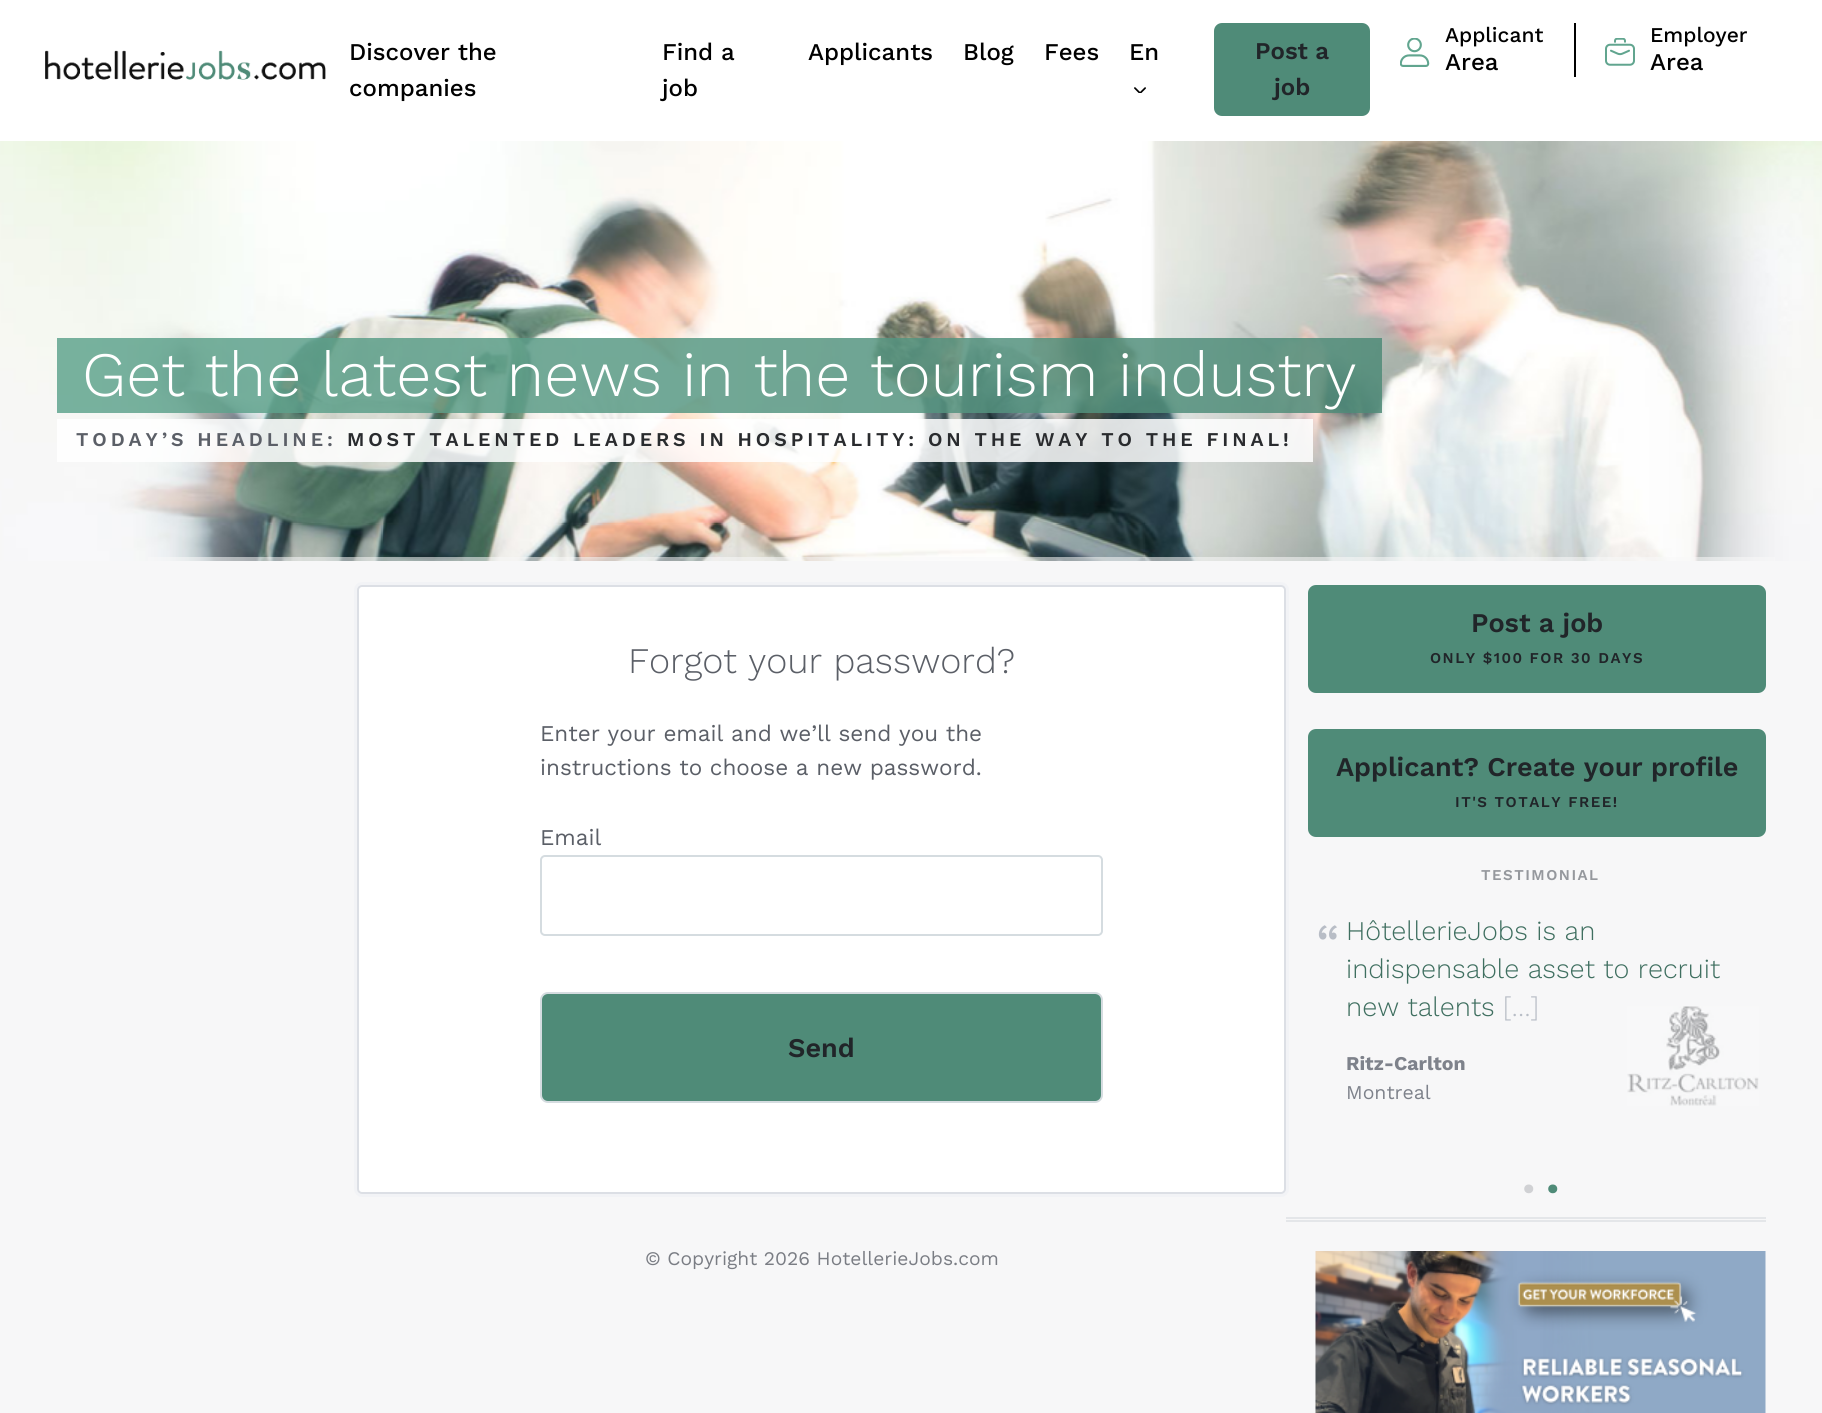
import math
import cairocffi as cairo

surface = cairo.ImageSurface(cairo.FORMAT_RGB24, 1822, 1413)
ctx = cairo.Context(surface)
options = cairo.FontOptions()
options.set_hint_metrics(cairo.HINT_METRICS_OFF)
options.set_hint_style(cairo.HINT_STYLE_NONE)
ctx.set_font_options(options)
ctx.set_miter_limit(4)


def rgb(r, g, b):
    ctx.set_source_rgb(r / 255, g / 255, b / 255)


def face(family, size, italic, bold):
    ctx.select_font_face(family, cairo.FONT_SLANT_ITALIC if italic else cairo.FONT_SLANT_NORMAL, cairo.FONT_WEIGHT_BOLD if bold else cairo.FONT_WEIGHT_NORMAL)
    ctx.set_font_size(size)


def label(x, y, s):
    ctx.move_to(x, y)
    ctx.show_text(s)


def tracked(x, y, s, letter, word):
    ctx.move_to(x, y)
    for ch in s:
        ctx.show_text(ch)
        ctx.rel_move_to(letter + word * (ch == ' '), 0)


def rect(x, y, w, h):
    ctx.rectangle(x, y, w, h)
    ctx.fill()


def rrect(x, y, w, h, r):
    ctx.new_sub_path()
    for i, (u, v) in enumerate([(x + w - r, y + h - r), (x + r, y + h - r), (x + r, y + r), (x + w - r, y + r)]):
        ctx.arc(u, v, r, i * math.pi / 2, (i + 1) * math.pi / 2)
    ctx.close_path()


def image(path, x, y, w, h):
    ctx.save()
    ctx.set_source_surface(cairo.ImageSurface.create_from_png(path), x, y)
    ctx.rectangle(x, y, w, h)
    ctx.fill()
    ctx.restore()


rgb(247, 247, 248)
ctx.paint()
rgb(255, 255, 255)
rect(0, 0, 1822, 141)
image('image0.png', 45, 50, 281, 30)
face('Work Sans Medium', 24, 0, 0)
rgb(0, 0, 0)
label(349, 60, 'Discover the')
label(349, 96, 'companies')
label(662, 60, 'Find a')
label(662, 96, 'job')
label(808, 60, 'Applicants')
label(963, 60, 'Blog')
label(1044, 60, 'Fees')
label(1129, 60, 'En')
image('image1.png', 1134, 87, 12, 6)
rgb(79, 139, 120)
rrect(1214, 23, 156, 93, 8)
ctx.fill()
face('Work Sans SemiBold', 24, 0, 0)
rgb(33, 37, 41)
label(1255, 59, 'Post a')
label(1274, 95, 'job')
rgb(0, 0, 0)
rect(1574, 23, 2, 54)
image('image2.png', 1400, 38, 30, 29)
face('Work Sans Medium', 21, 0, 0)
label(1445, 42, 'Applicant')
face('Work Sans Medium', 24, 0, 0)
label(1445, 70, 'Area')
image('image3.png', 1605, 38, 30, 28)
face('Work Sans Medium', 21, 0, 0)
label(1650, 42, 'Employer')
face('Work Sans Medium', 24, 0, 0)
label(1650, 70, 'Area')
image('image4.png', 0, 141, 1822, 420)
face('Work Sans Light', 63, 0, 0)
rgb(255, 255, 255)
label(82, 396, 'Get the latest news in the tourism industry')
ctx.set_source_rgba(1, 1, 1, 0.85)
rect(57, 419, 1256, 43)
face('Work Sans SemiBold', 19.5, 0, 0)
rgb(91, 95, 103)
tracked(76, 446, 'TODAY’S HEADLINE:', 3.9, 0)
rgb(41, 43, 46)
tracked(347, 446, 'MOST TALENTED LEADERS IN HOSPITALITY: ON THE WAY TO THE FINAL!', 3.9, 0)
ctx.set_source_rgba(0.973, 0.973, 0.973, 0.56)
rect(148, 557, 1627, 4)
rrect(355.5, 583.5, 932, 612, 6.5)
rgb(242, 243, 246)
ctx.set_line_width(3)
ctx.stroke()
rgb(255, 255, 255)
rrect(358, 586, 927, 607, 4)
ctx.fill_preserve()
rgb(220, 223, 229)
ctx.set_line_width(2)
ctx.stroke()
face('Work Sans Light', 36, 0, 0)
rgb(91, 95, 103)
label(628, 673, 'Forgot your password?')
face('Work Sans', 22.5, 0, 0)
label(540, 741, 'Enter your email and we’ll send you the')
label(540, 775, 'instructions to choose a new password.')
label(540, 845, 'Email')
rrect(541, 856, 561, 79, 4)
rgb(213, 220, 224)
ctx.stroke()
rgb(79, 139, 120)
rrect(541, 993, 561, 109, 7)
ctx.fill_preserve()
rgb(213, 220, 224)
ctx.stroke()
face('Work Sans SemiBold', 27, 0, 0)
rgb(33, 37, 41)
label(788, 1057, 'Send')
face('Work Sans', 19.25, 0, 0)
rgb(122, 125, 132)
label(645, 1265, '© Copyright 2026 HotellerieJobs.com')
rgb(79, 139, 120)
rrect(1308, 585, 458, 108, 8)
ctx.fill()
face('Work Sans SemiBold', 27, 0, 0)
rgb(33, 37, 41)
label(1471, 632, 'Post a job')
face('Work Sans SemiBold', 15, 0, 0)
tracked(1430, 663, 'ONLY $100 FOR 30 DAYS', 1.5, 0)
rgb(79, 139, 120)
rrect(1308, 729, 458, 108, 8)
ctx.fill()
face('Work Sans SemiBold', 27, 0, 0)
rgb(33, 37, 41)
label(1336, 776, 'Applicant? Create your profile')
face('Work Sans SemiBold', 15, 0, 0)
tracked(1455, 807, 'IT\'S TOTALY FREE!', 1.5, 0)
rgb(228, 230, 233)
rect(1286, 1217, 480, 2)
rect(1286, 1220, 480, 2)
rgb(149, 152, 157)
tracked(1481, 880, 'TESTIMONIAL', 1.5, 0)
image('image5.png', 1627, 1006, 132, 100)
face('Work Sans', 54, 0, 0)
rgb(184, 189, 198)
label(1316, 963, '“')
face('Work Sans Light', 27, 0, 0)
rgb(63, 111, 96)
label(1346, 940, 'HôtellerieJobs is an')
label(1346, 978, 'indispensable asset to recruit')
label(1346, 1016, 'new talents')
rgb(184, 189, 198)
label(1503, 1016, '[…]')
face('Work Sans', 19.5, 0, 1)
rgb(126, 130, 139)
label(1346, 1070, 'Ritz-Carlton')
face('Work Sans', 19.5, 0, 0)
label(1346, 1099, 'Montreal')
face('Work Sans', 36, 0, 0)
rgb(208, 209, 212)
label(1521, 1201, '•')
rgb(79, 139, 120)
label(1545, 1201, '•')
image('image6.png', 1315, 1251, 451, 162)
surface.write_to_png('render.png')
